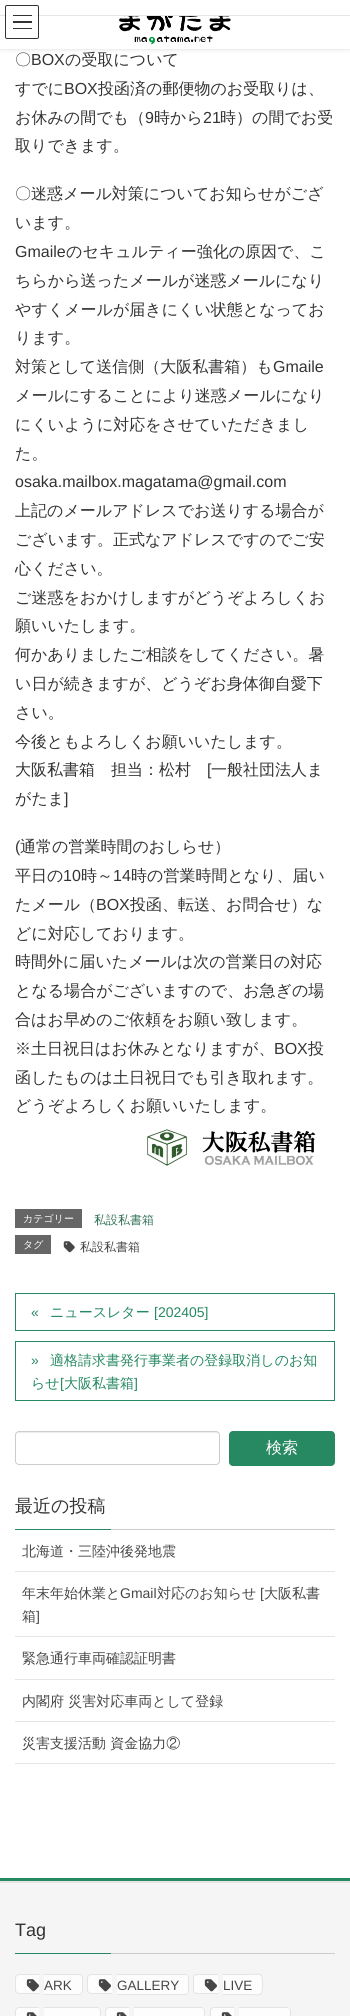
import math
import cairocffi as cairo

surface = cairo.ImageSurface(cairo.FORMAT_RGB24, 350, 2016)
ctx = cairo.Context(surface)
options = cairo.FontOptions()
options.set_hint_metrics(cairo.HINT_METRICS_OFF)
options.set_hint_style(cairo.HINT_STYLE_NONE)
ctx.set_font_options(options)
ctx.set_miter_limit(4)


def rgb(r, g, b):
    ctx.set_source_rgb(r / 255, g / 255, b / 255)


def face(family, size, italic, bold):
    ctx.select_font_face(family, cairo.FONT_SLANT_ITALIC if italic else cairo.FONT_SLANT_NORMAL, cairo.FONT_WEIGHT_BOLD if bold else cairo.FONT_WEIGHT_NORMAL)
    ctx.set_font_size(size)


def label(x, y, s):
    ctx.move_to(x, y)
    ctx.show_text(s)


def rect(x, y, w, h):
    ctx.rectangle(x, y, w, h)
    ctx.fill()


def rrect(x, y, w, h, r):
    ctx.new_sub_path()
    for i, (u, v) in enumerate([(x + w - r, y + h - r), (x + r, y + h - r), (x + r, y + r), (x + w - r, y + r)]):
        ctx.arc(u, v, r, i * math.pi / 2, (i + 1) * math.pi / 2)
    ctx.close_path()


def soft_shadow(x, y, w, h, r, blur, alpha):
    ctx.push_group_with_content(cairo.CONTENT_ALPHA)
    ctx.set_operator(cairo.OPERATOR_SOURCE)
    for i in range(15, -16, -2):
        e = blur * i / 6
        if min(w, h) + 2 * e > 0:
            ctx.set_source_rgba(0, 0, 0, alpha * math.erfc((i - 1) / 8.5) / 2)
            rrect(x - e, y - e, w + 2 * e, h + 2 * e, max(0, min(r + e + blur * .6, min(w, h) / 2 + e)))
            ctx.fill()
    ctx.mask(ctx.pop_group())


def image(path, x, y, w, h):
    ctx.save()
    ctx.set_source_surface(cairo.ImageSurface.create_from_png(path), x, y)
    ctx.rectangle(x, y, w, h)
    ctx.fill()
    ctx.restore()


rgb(255, 255, 255)
ctx.paint()
rgb(0, 0, 0)
soft_shadow(0, 1, 350, 49, 0, 1.5, 0.1)
rgb(255, 255, 255)
rect(0, 16, 350, 33)
image('image0.png', 119, 16, 112, 29)
rect(0, 0, 350, 15)
rgb(229, 229, 229)
rect(0, 15, 350, 1)
ctx.set_source_rgba(1, 1, 1, 0.8)
rrect(5, 5, 34, 34, 2)
ctx.fill()
rgb(50, 50, 50)
rect(13, 15, 19, 1)
rgb(51, 51, 51)
rect(13, 21, 19, 2)
rect(13, 28, 19, 1)
rrect(5.5, 5.5, 33, 33, 1.5)
ctx.set_line_width(1)
ctx.stroke()
face('WenQuanYi Zen Hei Medium', 16, 0, 0)
label(15, 65, '〇')
face('Liberation Sans', 16, 0, 0)
label(31, 65, 'BOX')
face('WenQuanYi Zen Hei Medium', 16, 0, 0)
label(65, 65, 'の受取について')
label(15, 94, 'すでに')
face('Liberation Sans', 16, 0, 0)
label(64, 94, 'BOX')
face('WenQuanYi Zen Hei Medium', 16, 0, 0)
label(98, 94, '投函済の郵便物のお受取りは、')
label(15, 123, 'お休みの間でも（')
face('Liberation Sans', 16, 0, 0)
label(145, 123, '9')
face('WenQuanYi Zen Hei Medium', 16, 0, 0)
label(154, 123, '時から')
face('Liberation Sans', 16, 0, 0)
label(203, 123, '21')
face('WenQuanYi Zen Hei Medium', 16, 0, 0)
label(220, 123, '時）の間でお受')
label(15, 151, '取りできます。')
label(15, 199, '〇迷惑メール対策についてお知らせがござ')
label(15, 228, 'います。')
face('Liberation Sans', 16, 0, 0)
label(15, 257, 'Gmaile')
face('WenQuanYi Zen Hei Medium', 16, 0, 0)
label(66, 257, 'のセキュルティー強化の原因で、こ')
label(15, 286, 'ちらから送ったメールが迷惑メールになり')
label(15, 315, 'やすくメールが届きにくい状態となってお')
label(15, 343, 'ります。')
label(15, 372, '対策として送信側（大阪私書箱）も')
face('Liberation Sans', 16, 0, 0)
label(273, 372, 'Gmaile')
face('WenQuanYi Zen Hei Medium', 16, 0, 0)
label(15, 401, 'メールにすることにより迷惑メールになり')
label(15, 430, 'にくいように対応をさせていただきまし')
label(15, 459, 'た。')
face('Liberation Sans', 16, 0, 0)
label(15, 487, 'osaka.mailbox.magatama@gmail.com')
face('WenQuanYi Zen Hei Medium', 16, 0, 0)
label(15, 516, '上記のメールアドレスでお送りする場合が')
label(15, 545, 'ございます。正式なアドレスですのでご安')
label(15, 574, '心ください。')
label(15, 603, 'ご迷惑をおかけしますがどうぞよろしくお')
label(15, 631, '願いいたします。')
label(15, 660, '何かありましたご相談をしてください。暑')
label(15, 689, 'い日が続きますが、どうぞお身体御自愛下')
label(15, 718, 'さい。')
label(15, 747, '今後ともよろしくお願いいたします。')
label(15, 775, '大阪私書箱　担当：松村')
face('Liberation Sans', 16, 0, 0)
label(207, 775, '[')
face('WenQuanYi Zen Hei Medium', 16, 0, 0)
label(211, 775, '一般社団法人ま')
label(15, 804, 'がたま')
face('Liberation Sans', 16, 0, 0)
label(64, 804, ']')
label(15, 852, '(')
face('WenQuanYi Zen Hei Medium', 16, 0, 0)
label(20, 852, '通常の営業時間のおしらせ）')
label(15, 881, '平日の')
face('Liberation Sans', 16, 0, 0)
label(63, 881, '10')
face('WenQuanYi Zen Hei Medium', 16, 0, 0)
label(81, 881, '時～')
face('Liberation Sans', 16, 0, 0)
label(113, 881, '14')
face('WenQuanYi Zen Hei Medium', 16, 0, 0)
label(131, 881, '時の営業時間となり、届い')
label(15, 910, 'たメール（')
face('Liberation Sans', 16, 0, 0)
label(96, 910, 'BOX')
face('WenQuanYi Zen Hei Medium', 16, 0, 0)
label(130, 910, '投函、転送、お問合せ）な')
label(15, 939, 'どに対応しております。')
label(15, 967, '時間外に届いたメールは次の営業日の対応')
label(15, 996, 'となる場合がございますので、お急ぎの場')
label(15, 1025, '合はお早めのご依頼をお願い致します。')
label(15, 1054, '※土日祝日はお休みとなりますが、')
face('Liberation Sans', 16, 0, 0)
label(274, 1054, 'BOX')
face('WenQuanYi Zen Hei Medium', 16, 0, 0)
label(308, 1054, '投')
label(15, 1083, '函したものは土日祝日でも引き取れます。')
label(15, 1111, 'どうぞよろしくお願いいたします。')
image('image1.png', 147, 1129, 169, 37)
rgb(102, 102, 102)
rect(15, 1209, 67, 19)
face('WenQuanYi Zen Hei Medium', 10, 0, 0)
rgb(255, 255, 255)
label(23, 1222, 'カテゴリー')
face('WenQuanYi Zen Hei Medium', 12, 0, 0)
rgb(52, 114, 90)
label(94, 1224, '私設私書箱')
rgb(102, 102, 102)
rect(15, 1235, 36, 19)
face('WenQuanYi Zen Hei Medium', 10, 0, 0)
rgb(255, 255, 255)
label(23, 1248, 'タグ')
image('image2.png', 63, 1241, 12, 12)
face('WenQuanYi Zen Hei Medium', 12, 0, 0)
rgb(70, 70, 70)
label(80, 1251, '私設私書箱')
ctx.rectangle(15.5, 1293.5, 319, 37)
rgb(38, 137, 98)
ctx.stroke()
face('Liberation Sans', 14, 0, 0)
label(31, 1317, '«')
face('WenQuanYi Zen Hei Medium', 14, 0, 0)
label(50, 1317, 'ニュースレター')
face('Liberation Sans', 14, 0, 0)
label(154, 1317, '[202405]')
ctx.rectangle(15.5, 1341.5, 319, 59)
ctx.stroke()
label(31, 1365, '»')
face('WenQuanYi Zen Hei Medium', 14, 0, 0)
label(50, 1365, '適格請求書発行事業者の登録取消しのお知')
label(31, 1388, 'らせ')
face('Liberation Sans', 14, 0, 0)
label(60, 1388, '[')
face('WenQuanYi Zen Hei Medium', 14, 0, 0)
label(64, 1388, '大阪私書箱')
face('Liberation Sans', 14, 0, 0)
label(134, 1388, ']')
rgb(236, 236, 236)
ctx.new_path()
ctx.move_to(19, 1433)
ctx.line_to(216, 1433)
ctx.curve_to(218, 1433, 219, 1434, 219, 1436)
ctx.curve_to(219, 1434, 218, 1432, 216, 1432)
ctx.line_to(19, 1432)
ctx.curve_to(17, 1432, 16, 1434, 16, 1436)
ctx.curve_to(16, 1434, 17, 1433, 19, 1433)
ctx.close_path()
ctx.fill()
rrect(15.5, 1431.5, 204, 33, 3.5)
rgb(204, 204, 204)
ctx.stroke()
rgb(38, 137, 98)
rrect(229, 1431, 106, 35, 4)
ctx.fill()
face('WenQuanYi Zen Hei Medium', 16, 0, 0)
rgb(255, 255, 255)
label(266, 1453, '検索')
rgb(204, 204, 204)
rect(111, 1529, 224, 1)
face('WenQuanYi Zen Hei Medium', 18, 0, 0)
rgb(51, 51, 51)
label(15, 1512, '最近の投稿')
rgb(38, 137, 98)
rect(15, 1529, 96, 1)
rgb(229, 229, 229)
rect(15, 1571, 320, 1)
face('WenQuanYi Zen Hei Medium', 14, 0, 0)
rgb(70, 70, 70)
label(22, 1556, '北海道・三陸沖後発地震')
rgb(229, 229, 229)
rect(15, 1636, 320, 1)
rgb(70, 70, 70)
label(22, 1598, '年末年始休業と')
face('Liberation Sans', 14, 0, 0)
label(120, 1598, 'Gmail')
face('WenQuanYi Zen Hei Medium', 14, 0, 0)
label(157, 1598, '対応のお知らせ')
face('Liberation Sans', 14, 0, 0)
label(260, 1598, '[')
face('WenQuanYi Zen Hei Medium', 14, 0, 0)
label(264, 1598, '大阪私書')
label(22, 1621, '箱')
face('Liberation Sans', 14, 0, 0)
label(36, 1621, ']')
rgb(229, 229, 229)
rect(15, 1679, 320, 1)
face('WenQuanYi Zen Hei Medium', 14, 0, 0)
rgb(70, 70, 70)
label(22, 1663, '緊急通行車両確認証明書')
rgb(229, 229, 229)
rect(15, 1721, 320, 1)
rgb(70, 70, 70)
label(22, 1706, '内閣府 災害対応車両として登録')
rgb(229, 229, 229)
rect(15, 1763, 320, 1)
rgb(70, 70, 70)
label(22, 1748, '災害支援活動 資金協力②')
rgb(245, 245, 245)
rect(0, 1883, 350, 133)
rgb(38, 137, 98)
rect(0, 1878, 350, 3)
rgb(229, 229, 229)
rect(0, 1881, 350, 2)
rgb(204, 204, 204)
rect(111, 1953, 224, 1)
face('Liberation Sans', 18, 0, 0)
rgb(51, 51, 51)
label(15, 1936, 'Tag')
rgb(38, 137, 98)
rect(15, 1953, 96, 1)
rgb(253, 253, 253)
ctx.new_path()
ctx.move_to(19, 1974)
ctx.line_to(39, 1974)
ctx.line_to(39, 1994)
ctx.line_to(19, 1994)
ctx.curve_to(17, 1994, 15, 1992, 15, 1990)
ctx.line_to(15, 1978)
ctx.curve_to(15, 1976, 17, 1974, 19, 1974)
ctx.close_path()
ctx.fill()
ctx.set_source_rgba(0, 0, 0, 0.1)
ctx.set_fill_rule(cairo.FILL_RULE_EVEN_ODD)
ctx.new_path()
ctx.move_to(19, 1974)
ctx.line_to(39, 1974)
ctx.line_to(39, 1994)
ctx.line_to(19, 1994)
ctx.curve_to(17, 1994, 15, 1992, 15, 1990)
ctx.line_to(15, 1978)
ctx.curve_to(15, 1976, 17, 1974, 19, 1974)
ctx.close_path()
ctx.move_to(19, 1975)
ctx.line_to(39, 1975)
ctx.line_to(39, 1993)
ctx.line_to(19, 1993)
ctx.curve_to(17.5, 1993, 16, 1991.5, 16, 1990)
ctx.line_to(16, 1978)
ctx.curve_to(16, 1976.5, 17.5, 1975, 19, 1975)
ctx.close_path()
ctx.fill()
image('image3.png', 26, 1979, 13, 13)
rgb(253, 253, 253)
ctx.new_path()
ctx.move_to(44, 1974)
ctx.line_to(79, 1974)
ctx.curve_to(81, 1974, 83, 1976, 83, 1978)
ctx.line_to(83, 1991)
ctx.curve_to(83, 1993, 81, 1995, 79, 1995)
ctx.line_to(44, 1995)
ctx.close_path()
ctx.fill()
ctx.set_source_rgba(0, 0, 0, 0.1)
ctx.new_path()
ctx.move_to(44, 1974)
ctx.line_to(79, 1974)
ctx.curve_to(81, 1974, 83, 1976, 83, 1978)
ctx.line_to(83, 1991)
ctx.curve_to(83, 1993, 81, 1995, 79, 1995)
ctx.line_to(44, 1995)
ctx.close_path()
ctx.move_to(44, 1975)
ctx.line_to(79, 1975)
ctx.curve_to(80.5, 1975, 82, 1976.5, 82, 1978)
ctx.line_to(82, 1991)
ctx.curve_to(82, 1992.5, 80.5, 1994, 79, 1994)
ctx.line_to(44, 1994)
ctx.close_path()
ctx.fill()
face('Liberation Sans', 13.5, 0, 0)
rgb(70, 70, 70)
label(44, 1990, 'ARK')
rgb(253, 253, 253)
ctx.new_path()
ctx.move_to(91, 1974)
ctx.line_to(112, 1974)
ctx.line_to(112, 1994)
ctx.line_to(91, 1994)
ctx.curve_to(89, 1994, 87, 1992, 87, 1990)
ctx.line_to(87, 1978)
ctx.curve_to(87, 1976, 89, 1974, 91, 1974)
ctx.close_path()
ctx.fill()
ctx.set_source_rgba(0, 0, 0, 0.1)
ctx.new_path()
ctx.move_to(91, 1974)
ctx.line_to(112, 1974)
ctx.line_to(112, 1994)
ctx.line_to(91, 1994)
ctx.curve_to(89, 1994, 87, 1992, 87, 1990)
ctx.line_to(87, 1978)
ctx.curve_to(87, 1976, 89, 1974, 91, 1974)
ctx.close_path()
ctx.move_to(91, 1975)
ctx.line_to(112, 1975)
ctx.line_to(112, 1993)
ctx.line_to(91, 1993)
ctx.curve_to(89.5, 1993, 88, 1991.5, 88, 1990)
ctx.line_to(88, 1978)
ctx.curve_to(88, 1976.5, 89.5, 1975, 91, 1975)
ctx.close_path()
ctx.fill()
image('image3.png', 98, 1979, 13, 13)
rgb(253, 253, 253)
ctx.new_path()
ctx.move_to(117, 1974)
ctx.line_to(185, 1974)
ctx.curve_to(187, 1974, 189, 1976, 189, 1978)
ctx.line_to(189, 1991)
ctx.curve_to(189, 1993, 187, 1995, 185, 1995)
ctx.line_to(117, 1995)
ctx.close_path()
ctx.fill()
ctx.set_source_rgba(0, 0, 0, 0.1)
ctx.new_path()
ctx.move_to(117, 1974)
ctx.line_to(185, 1974)
ctx.curve_to(187, 1974, 189, 1976, 189, 1978)
ctx.line_to(189, 1991)
ctx.curve_to(189, 1993, 187, 1995, 185, 1995)
ctx.line_to(117, 1995)
ctx.close_path()
ctx.move_to(117, 1975)
ctx.line_to(185, 1975)
ctx.curve_to(187, 1975, 188, 1976, 188, 1978)
ctx.line_to(188, 1991)
ctx.curve_to(188, 1993, 187, 1994, 185, 1994)
ctx.line_to(117, 1994)
ctx.close_path()
ctx.fill()
rgb(70, 70, 70)
label(117, 1990, 'GALLERY')
rgb(253, 253, 253)
ctx.new_path()
ctx.move_to(197, 1974)
ctx.line_to(218, 1974)
ctx.line_to(218, 1994)
ctx.line_to(197, 1994)
ctx.curve_to(195, 1994, 193, 1992, 193, 1990)
ctx.line_to(193, 1978)
ctx.curve_to(193, 1976, 195, 1974, 197, 1974)
ctx.close_path()
ctx.fill()
ctx.set_source_rgba(0, 0, 0, 0.1)
ctx.new_path()
ctx.move_to(197, 1974)
ctx.line_to(218, 1974)
ctx.line_to(218, 1994)
ctx.line_to(197, 1994)
ctx.curve_to(195, 1994, 193, 1992, 193, 1990)
ctx.line_to(193, 1978)
ctx.curve_to(193, 1976, 195, 1974, 197, 1974)
ctx.close_path()
ctx.move_to(197, 1975)
ctx.line_to(218, 1975)
ctx.line_to(218, 1993)
ctx.line_to(197, 1993)
ctx.curve_to(195.5, 1993, 194, 1991.5, 194, 1990)
ctx.line_to(194, 1978)
ctx.curve_to(194, 1976.5, 195.5, 1975, 197, 1975)
ctx.close_path()
ctx.fill()
image('image3.png', 204, 1979, 13, 13)
rgb(253, 253, 253)
ctx.new_path()
ctx.move_to(223, 1974)
ctx.line_to(259, 1974)
ctx.curve_to(261, 1974, 263, 1976, 263, 1978)
ctx.line_to(263, 1991)
ctx.curve_to(263, 1993, 261, 1995, 259, 1995)
ctx.line_to(223, 1995)
ctx.close_path()
ctx.fill()
ctx.set_source_rgba(0, 0, 0, 0.1)
ctx.new_path()
ctx.move_to(223, 1974)
ctx.line_to(247, 1974)
ctx.curve_to(262, 1974, 263, 1971, 263, 1984)
ctx.curve_to(263, 1998, 262, 1995, 247, 1995)
ctx.line_to(223, 1995)
ctx.close_path()
ctx.move_to(223, 1975)
ctx.line_to(247, 1975)
ctx.curve_to(261, 1975, 262, 1972, 262, 1984)
ctx.curve_to(262, 1997, 261, 1994, 247, 1994)
ctx.line_to(223, 1994)
ctx.close_path()
ctx.fill()
rgb(70, 70, 70)
label(223, 1990, 'LIVE')
rgb(253, 253, 253)
ctx.new_path()
ctx.move_to(19, 2007)
ctx.line_to(39, 2007)
ctx.line_to(39, 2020)
ctx.line_to(19, 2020)
ctx.curve_to(17, 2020, 15, 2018, 15, 2016)
ctx.line_to(15, 2011)
ctx.curve_to(15, 2009, 17, 2007, 19, 2007)
ctx.close_path()
ctx.fill()
ctx.set_source_rgba(0, 0, 0, 0.1)
ctx.new_path()
ctx.move_to(19, 2007)
ctx.line_to(39, 2007)
ctx.line_to(39, 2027)
ctx.line_to(19, 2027)
ctx.curve_to(17, 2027, 15, 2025, 15, 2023)
ctx.line_to(15, 2011)
ctx.curve_to(15, 2009, 17, 2007, 19, 2007)
ctx.close_path()
ctx.move_to(19, 2008)
ctx.line_to(39, 2008)
ctx.line_to(39, 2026)
ctx.line_to(19, 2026)
ctx.curve_to(17.5, 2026, 16, 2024.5, 16, 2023)
ctx.line_to(16, 2011)
ctx.curve_to(16, 2009.5, 17.5, 2008, 19, 2008)
ctx.close_path()
ctx.fill()
rgb(253, 253, 253)
ctx.new_path()
ctx.move_to(44, 2007)
ctx.line_to(97, 2007)
ctx.curve_to(99, 2007, 101, 2009, 101, 2011)
ctx.line_to(101, 2016)
ctx.curve_to(101, 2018, 99, 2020, 97, 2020)
ctx.line_to(44, 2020)
ctx.close_path()
ctx.fill()
ctx.set_source_rgba(0, 0, 0, 0.1)
ctx.new_path()
ctx.move_to(44, 2007)
ctx.line_to(97, 2007)
ctx.curve_to(99, 2007, 101, 2009, 101, 2011)
ctx.line_to(101, 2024)
ctx.curve_to(101, 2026, 99, 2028, 97, 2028)
ctx.line_to(44, 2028)
ctx.close_path()
ctx.move_to(44, 2008)
ctx.line_to(97, 2008)
ctx.curve_to(99, 2008, 100, 2009, 100, 2011)
ctx.line_to(100, 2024)
ctx.curve_to(100, 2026, 99, 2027, 97, 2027)
ctx.line_to(44, 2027)
ctx.close_path()
ctx.fill()
rgb(253, 253, 253)
ctx.new_path()
ctx.move_to(109, 2007)
ctx.line_to(129, 2007)
ctx.line_to(129, 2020)
ctx.line_to(109, 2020)
ctx.curve_to(107, 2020, 105, 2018, 105, 2016)
ctx.line_to(105, 2011)
ctx.curve_to(105, 2009, 107, 2007, 109, 2007)
ctx.close_path()
ctx.fill()
ctx.set_source_rgba(0, 0, 0, 0.1)
ctx.new_path()
ctx.move_to(109, 2007)
ctx.line_to(129, 2007)
ctx.line_to(129, 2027)
ctx.line_to(109, 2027)
ctx.curve_to(107, 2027, 105, 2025, 105, 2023)
ctx.line_to(105, 2011)
ctx.curve_to(105, 2009, 107, 2007, 109, 2007)
ctx.close_path()
ctx.move_to(109, 2008)
ctx.line_to(129, 2008)
ctx.line_to(129, 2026)
ctx.line_to(109, 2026)
ctx.curve_to(107.5, 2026, 106, 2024.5, 106, 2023)
ctx.line_to(106, 2011)
ctx.curve_to(106, 2009.5, 107.5, 2008, 109, 2008)
ctx.close_path()
ctx.fill()
rgb(253, 253, 253)
ctx.new_path()
ctx.move_to(134, 2007)
ctx.line_to(201, 2007)
ctx.curve_to(203, 2007, 205, 2009, 205, 2011)
ctx.line_to(205, 2016)
ctx.curve_to(205, 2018, 203, 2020, 201, 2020)
ctx.line_to(134, 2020)
ctx.close_path()
ctx.fill()
ctx.set_source_rgba(0, 0, 0, 0.1)
ctx.new_path()
ctx.move_to(134, 2007)
ctx.line_to(201, 2007)
ctx.curve_to(203, 2007, 205, 2009, 205, 2011)
ctx.line_to(205, 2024)
ctx.curve_to(205, 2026, 203, 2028, 201, 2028)
ctx.line_to(134, 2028)
ctx.close_path()
ctx.move_to(134, 2008)
ctx.line_to(201, 2008)
ctx.curve_to(203, 2008, 204, 2009, 204, 2011)
ctx.line_to(204, 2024)
ctx.curve_to(204, 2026, 203, 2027, 201, 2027)
ctx.line_to(134, 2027)
ctx.close_path()
ctx.fill()
rgb(253, 253, 253)
ctx.new_path()
ctx.move_to(214, 2007)
ctx.line_to(234, 2007)
ctx.line_to(234, 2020)
ctx.line_to(214, 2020)
ctx.curve_to(212, 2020, 210, 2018, 210, 2016)
ctx.line_to(210, 2011)
ctx.curve_to(210, 2009, 212, 2007, 214, 2007)
ctx.close_path()
ctx.fill()
ctx.set_source_rgba(0, 0, 0, 0.1)
ctx.new_path()
ctx.move_to(214, 2007)
ctx.line_to(234, 2007)
ctx.line_to(234, 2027)
ctx.line_to(214, 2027)
ctx.curve_to(212, 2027, 210, 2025, 210, 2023)
ctx.line_to(210, 2011)
ctx.curve_to(210, 2009, 212, 2007, 214, 2007)
ctx.close_path()
ctx.move_to(214, 2008)
ctx.line_to(234, 2008)
ctx.line_to(234, 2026)
ctx.line_to(214, 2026)
ctx.curve_to(212.5, 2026, 211, 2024.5, 211, 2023)
ctx.line_to(211, 2011)
ctx.curve_to(211, 2009.5, 212.5, 2008, 214, 2008)
ctx.close_path()
ctx.fill()
rgb(253, 253, 253)
ctx.new_path()
ctx.move_to(239, 2007)
ctx.line_to(287, 2007)
ctx.curve_to(289, 2007, 291, 2009, 291, 2011)
ctx.line_to(291, 2016)
ctx.curve_to(291, 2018, 289, 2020, 287, 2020)
ctx.line_to(239, 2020)
ctx.close_path()
ctx.fill()
image('image4.png', 26, 2012, 11, 4)
image('image4.png', 116, 2012, 11, 4)
image('image4.png', 221, 2012, 11, 4)
ctx.set_source_rgba(0, 0, 0, 0.1)
ctx.new_path()
ctx.move_to(239, 2007)
ctx.line_to(287, 2007)
ctx.curve_to(289, 2007, 291, 2009, 291, 2011)
ctx.line_to(291, 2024)
ctx.curve_to(291, 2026, 289, 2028, 287, 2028)
ctx.line_to(239, 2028)
ctx.close_path()
ctx.move_to(239, 2008)
ctx.line_to(287, 2008)
ctx.curve_to(289, 2008, 290, 2009, 290, 2011)
ctx.line_to(290, 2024)
ctx.curve_to(290, 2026, 289, 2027, 287, 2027)
ctx.line_to(239, 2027)
ctx.close_path()
ctx.fill()
surface.write_to_png('render.png')
